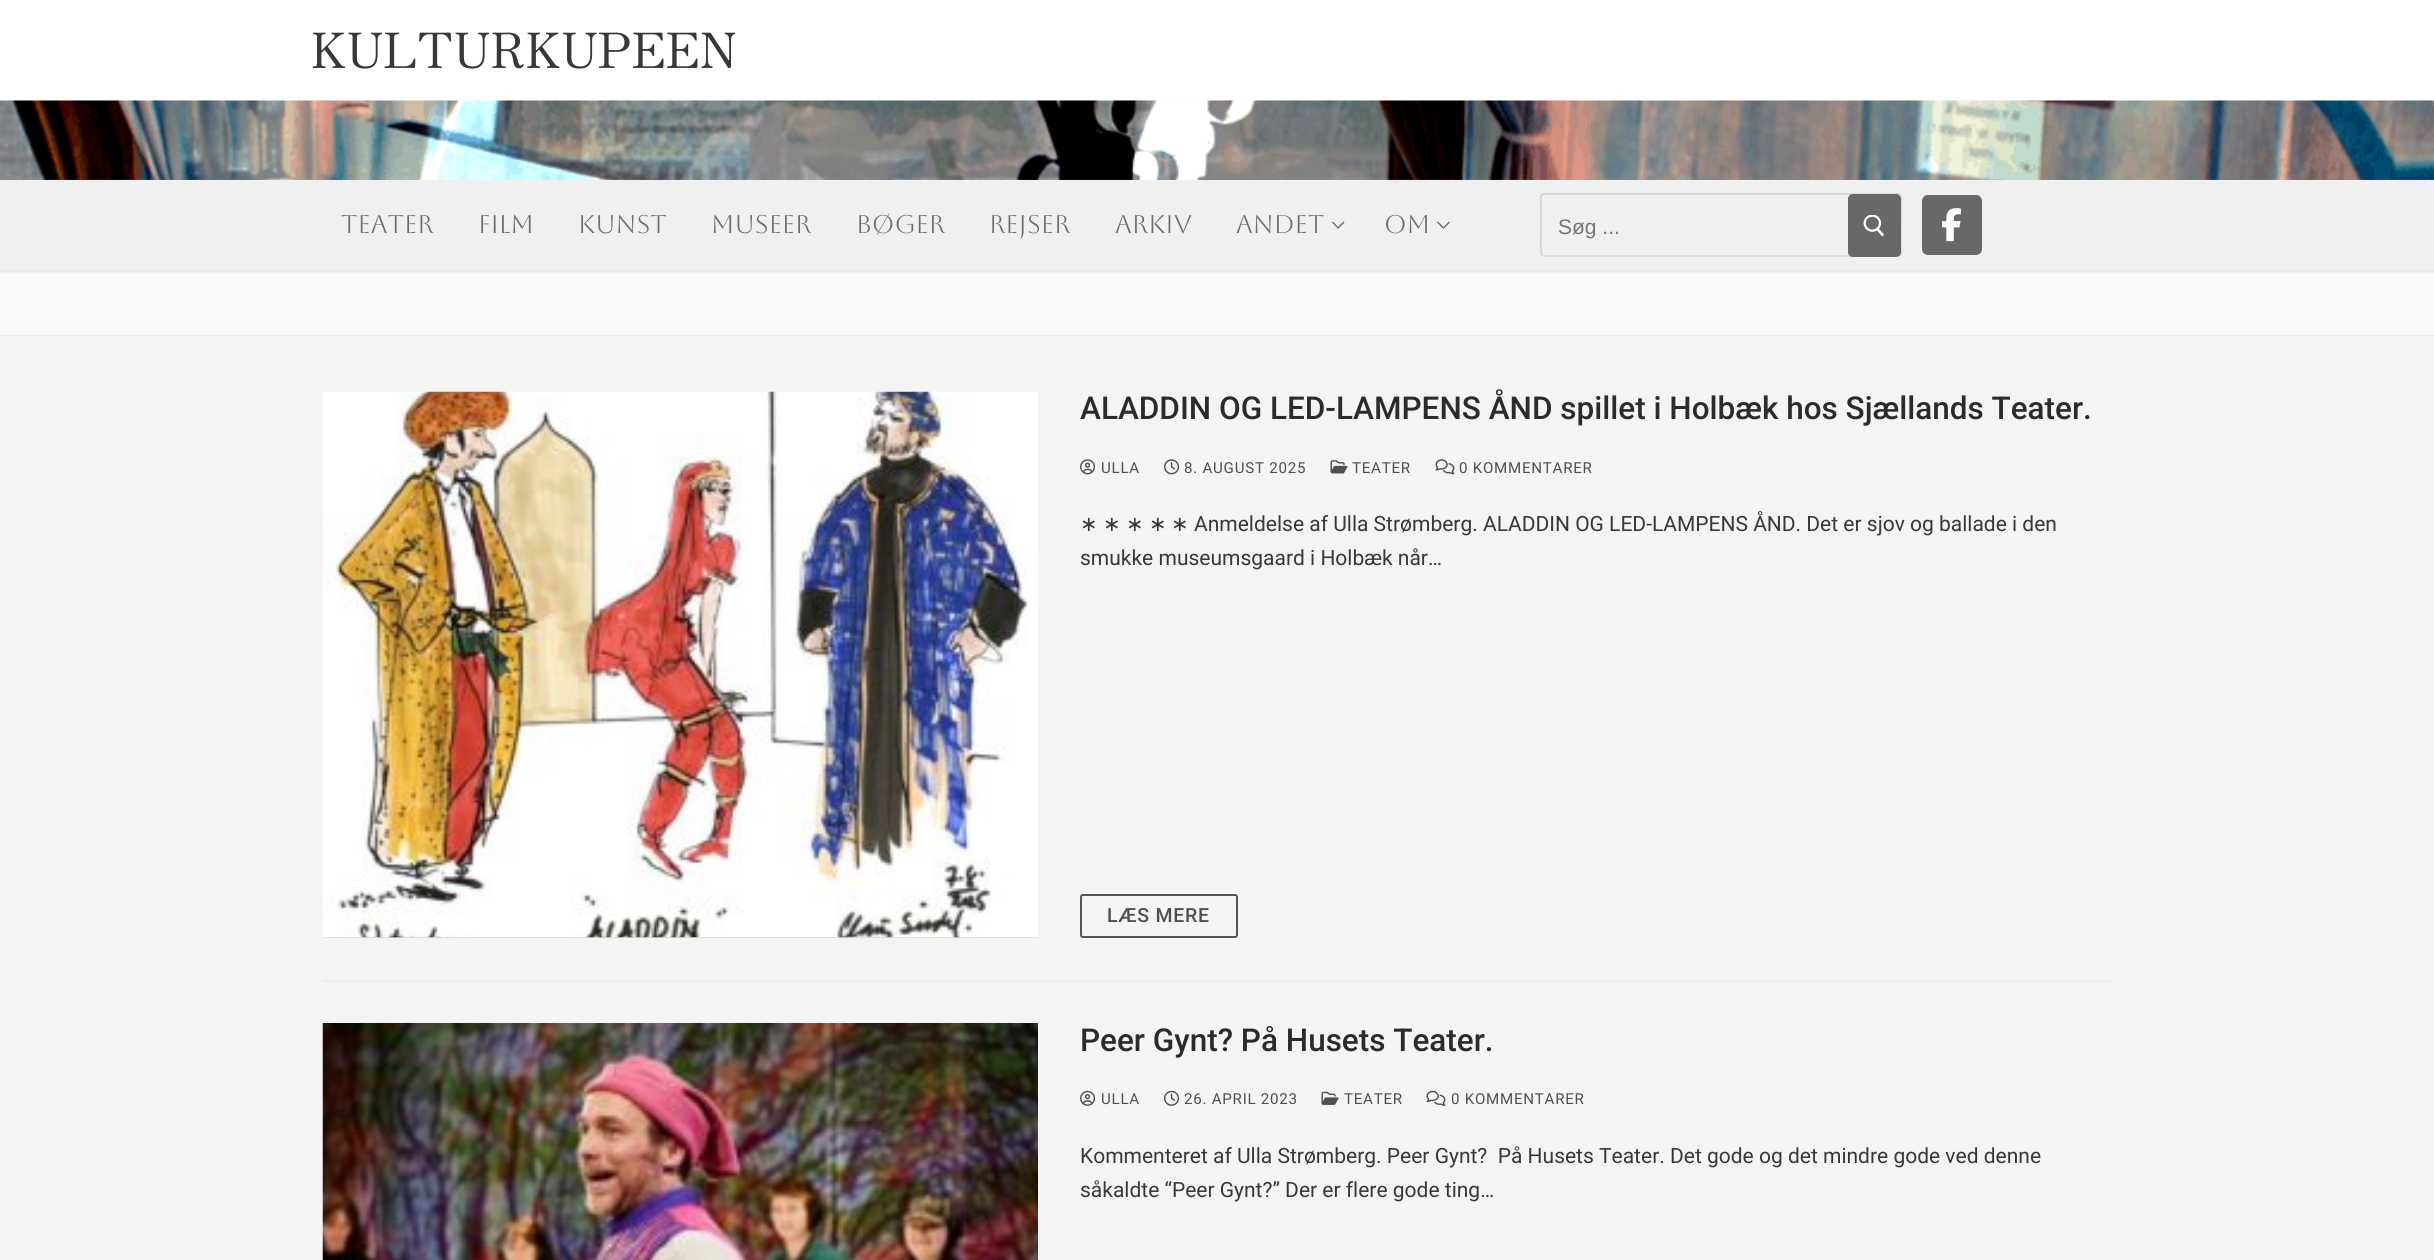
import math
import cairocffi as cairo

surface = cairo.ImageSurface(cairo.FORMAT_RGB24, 2434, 1260)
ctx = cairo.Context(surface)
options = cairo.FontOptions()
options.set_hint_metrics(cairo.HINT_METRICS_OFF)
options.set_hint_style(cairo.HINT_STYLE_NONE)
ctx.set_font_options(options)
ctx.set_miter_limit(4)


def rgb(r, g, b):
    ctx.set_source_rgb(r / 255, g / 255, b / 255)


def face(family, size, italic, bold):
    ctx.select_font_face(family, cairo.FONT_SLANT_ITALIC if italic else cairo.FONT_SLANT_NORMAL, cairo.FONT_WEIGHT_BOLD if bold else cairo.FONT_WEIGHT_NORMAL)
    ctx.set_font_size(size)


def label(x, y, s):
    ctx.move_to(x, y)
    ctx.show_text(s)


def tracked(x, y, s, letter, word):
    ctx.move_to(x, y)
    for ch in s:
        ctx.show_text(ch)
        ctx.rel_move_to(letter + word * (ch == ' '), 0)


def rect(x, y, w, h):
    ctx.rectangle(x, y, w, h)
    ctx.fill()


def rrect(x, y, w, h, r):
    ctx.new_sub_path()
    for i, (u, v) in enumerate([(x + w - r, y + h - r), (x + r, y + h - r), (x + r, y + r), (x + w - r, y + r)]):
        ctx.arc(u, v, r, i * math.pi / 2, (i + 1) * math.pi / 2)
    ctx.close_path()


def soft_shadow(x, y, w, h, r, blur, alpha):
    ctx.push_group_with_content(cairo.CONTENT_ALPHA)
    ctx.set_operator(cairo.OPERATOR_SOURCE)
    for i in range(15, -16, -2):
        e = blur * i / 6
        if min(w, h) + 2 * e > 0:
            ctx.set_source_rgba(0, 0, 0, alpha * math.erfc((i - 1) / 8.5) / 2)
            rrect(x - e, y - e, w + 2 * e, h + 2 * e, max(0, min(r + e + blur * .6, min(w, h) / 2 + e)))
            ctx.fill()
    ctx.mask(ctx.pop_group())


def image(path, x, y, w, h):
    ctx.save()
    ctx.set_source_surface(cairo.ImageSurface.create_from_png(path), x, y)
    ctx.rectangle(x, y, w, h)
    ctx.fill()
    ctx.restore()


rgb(255, 255, 255)
ctx.paint()
face('Zen Old Mincho', 48.75, 0, 0)
rgb(56, 56, 56)
tracked(311, 68, 'KULTURKUPEEN', 0.6, 0)
rgb(225, 229, 234)
soft_shadow(0, 102, 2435, 80, 0, 1.5, 1)
image('image0.png', 0, 100, 2434, 80)
rgb(249, 249, 249)
rect(0, 270, 2434, 65)
rgb(225, 229, 234)
soft_shadow(0, 182, 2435, 90, 0, 1.5, 1)
rgb(240, 240, 240)
rect(0, 180, 2434, 90)
face('Aboreto', 25.5, 0, 0)
rgb(108, 108, 108)
label(341, 233, 'TEATER')
label(478, 233, 'FILM')
label(578, 233, 'KUNST')
label(711, 233, 'MUSEER')
label(856, 233, 'BØGER')
label(989, 233, 'REJSER')
label(1115, 233, 'ARKIV')
label(1236, 233, 'ANDET')
ctx.new_path()
ctx.move_to(1338, 229)
ctx.line_to(1332, 222.5)
ctx.line_to(1333, 221.5)
ctx.line_to(1338, 227)
ctx.close_path()
ctx.move_to(1344.5, 222.5)
ctx.line_to(1338, 229)
ctx.line_to(1338, 227)
ctx.line_to(1343.5, 221.5)
ctx.close_path()
ctx.fill()
label(1384, 233, 'OM')
ctx.new_path()
ctx.move_to(1443.5, 229)
ctx.line_to(1437, 222.5)
ctx.line_to(1438, 221.5)
ctx.line_to(1443.5, 227)
ctx.close_path()
ctx.fill()
ctx.set_source_rgba(0, 0, 0, 0.55)
ctx.new_path()
ctx.move_to(1450, 222.5)
ctx.line_to(1443.5, 229)
ctx.line_to(1443.5, 227)
ctx.line_to(1449, 221.5)
ctx.close_path()
ctx.fill()
ctx.new_path()
ctx.move_to(1900.5, 195)
ctx.curve_to(1902.5, 196.5, 1901, 221, 1901, 225)
ctx.line_to(1901, 244)
ctx.curve_to(1901, 248.5, 1903, 255.5, 1899, 256)
ctx.line_to(1543.5, 256)
ctx.line_to(1542, 255)
rgb(217, 217, 217)
ctx.set_line_width(1.5)
ctx.stroke()
ctx.new_path()
ctx.move_to(1542, 255)
ctx.curve_to(1540, 253.5, 1541, 229, 1541, 225)
ctx.line_to(1541, 206)
ctx.curve_to(1541, 201.5, 1539.5, 194.5, 1543.5, 194)
ctx.line_to(1899, 194)
ctx.line_to(1900.5, 195)
ctx.set_source_rgba(0.333, 0.333, 0.333, 0.2)
ctx.stroke()
face('Liberation Sans', 21, 0, 0)
rgb(117, 117, 117)
label(1558, 234, 'Søg ...')
rgb(104, 104, 104)
rrect(1848, 194, 53, 63, 5)
ctx.fill()
image('image1.png', 1863, 215, 22, 22)
rrect(1922, 195, 60, 60, 6)
ctx.fill()
image('image2.png', 1942, 208, 19, 34)
rgb(234, 236, 238)
rect(0, 335, 2434, 1)
rgb(244, 244, 244)
rect(0, 336, 2434, 924)
rgb(234, 236, 238)
rect(323, 980, 1791, 2)
rgb(213, 213, 213)
rect(323, 937, 715, 1)
image('image3.png', 322, 391, 716, 547)
face('Roboto Medium', 31.5, 0, 0)
rgb(43, 43, 43)
label(1080, 419, 'ALADDIN OG LED-LAMPENS ÅND spillet i Holbæk hos Sjællands Teater.')
image('image4.png', 1080, 459, 16, 16)
face('Roboto', 15.1, 0, 0)
rgb(79, 79, 79)
tracked(1101, 473, 'ULLA', 0.75, 0)
image('image5.png', 1164, 459, 16, 16)
tracked(1184, 473, '8. AUGUST 2025', 0.75, 0)
image('image6.png', 1330, 460, 18, 14)
tracked(1352, 473, 'TEATER', 0.75, 0)
image('image7.png', 1435, 459, 20, 16)
tracked(1459, 473, '0 KOMMENTARER', 0.75, 0)
face('DejaVu Sans', 21, 0, 0)
rgb(56, 56, 56)
label(1080, 531, '∗')
label(1103, 531, '∗')
label(1126, 531, '∗')
label(1149, 531, '∗')
label(1171, 531, '∗')
face('Roboto', 21, 0, 0)
label(1194, 531, 'Anmeldelse af Ulla Strømberg. ALADDIN OG LED-LAMPENS ÅND. Det er sjov og ballade i den')
label(1080, 565, 'smukke museumsgaard i Holbæk når…')
rrect(1081, 895, 156, 42, 2)
rgb(84, 84, 84)
ctx.set_line_width(2)
ctx.stroke()
face('Roboto Medium', 19.5, 0, 0)
rgb(79, 79, 79)
tracked(1107, 922, 'LÆS MERE', 0.75, 0)
image('image8.png', 322, 1023, 716, 237)
face('Roboto Medium', 31.5, 0, 0)
rgb(43, 43, 43)
label(1080, 1051, 'Peer Gynt? På Husets Teater.')
image('image9.png', 1080, 1090, 16, 16)
face('Roboto', 15.1, 0, 0)
rgb(79, 79, 79)
tracked(1101, 1104, 'ULLA', 0.75, 0)
image('image10.png', 1164, 1090, 16, 16)
tracked(1184, 1104, '26. APRIL 2023', 0.75, 0)
image('image11.png', 1321, 1091, 18, 14)
tracked(1344, 1104, 'TEATER', 0.75, 0)
image('image12.png', 1426, 1090, 20, 16)
tracked(1451, 1104, '0 KOMMENTARER', 0.75, 0)
face('Roboto', 21, 0, 0)
rgb(56, 56, 56)
label(1080, 1163, 'Kommenteret af Ulla Strømberg. Peer Gynt?  På Husets Teater. Det gode og det mindre gode ved denne')
label(1080, 1197, 'såkaldte “Peer Gynt?” Der er flere gode ting…')
surface.write_to_png('render.png')
